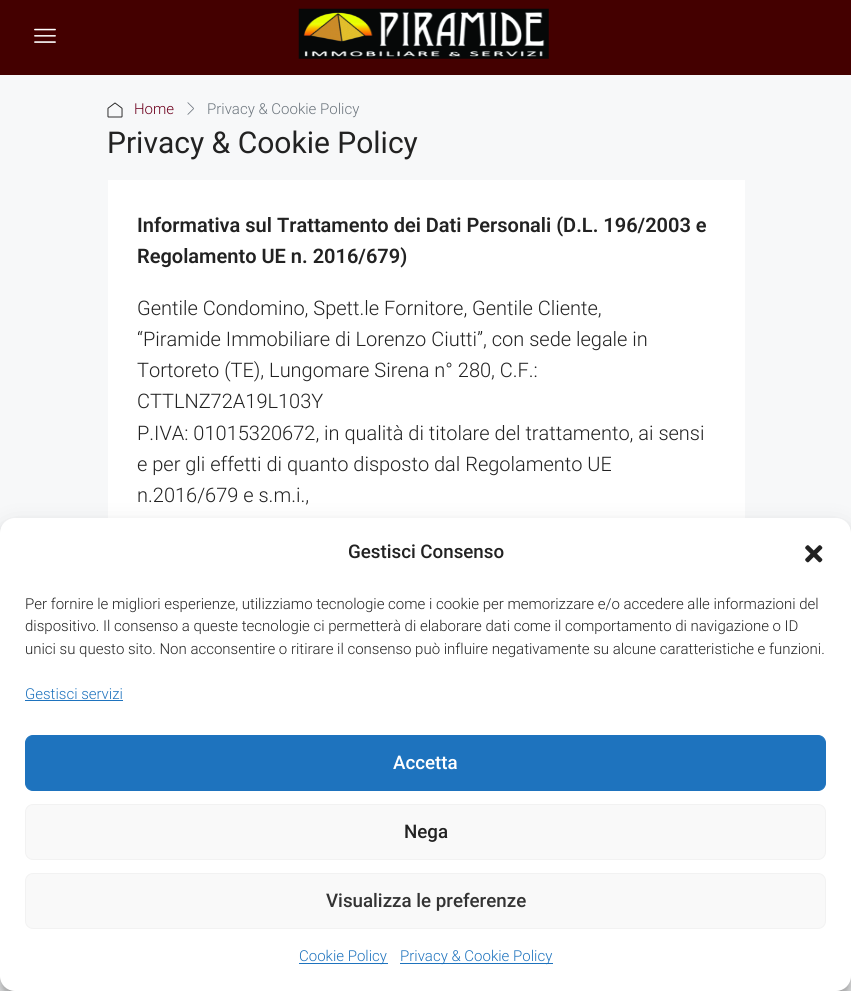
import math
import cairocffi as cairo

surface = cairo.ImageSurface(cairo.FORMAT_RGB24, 851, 991)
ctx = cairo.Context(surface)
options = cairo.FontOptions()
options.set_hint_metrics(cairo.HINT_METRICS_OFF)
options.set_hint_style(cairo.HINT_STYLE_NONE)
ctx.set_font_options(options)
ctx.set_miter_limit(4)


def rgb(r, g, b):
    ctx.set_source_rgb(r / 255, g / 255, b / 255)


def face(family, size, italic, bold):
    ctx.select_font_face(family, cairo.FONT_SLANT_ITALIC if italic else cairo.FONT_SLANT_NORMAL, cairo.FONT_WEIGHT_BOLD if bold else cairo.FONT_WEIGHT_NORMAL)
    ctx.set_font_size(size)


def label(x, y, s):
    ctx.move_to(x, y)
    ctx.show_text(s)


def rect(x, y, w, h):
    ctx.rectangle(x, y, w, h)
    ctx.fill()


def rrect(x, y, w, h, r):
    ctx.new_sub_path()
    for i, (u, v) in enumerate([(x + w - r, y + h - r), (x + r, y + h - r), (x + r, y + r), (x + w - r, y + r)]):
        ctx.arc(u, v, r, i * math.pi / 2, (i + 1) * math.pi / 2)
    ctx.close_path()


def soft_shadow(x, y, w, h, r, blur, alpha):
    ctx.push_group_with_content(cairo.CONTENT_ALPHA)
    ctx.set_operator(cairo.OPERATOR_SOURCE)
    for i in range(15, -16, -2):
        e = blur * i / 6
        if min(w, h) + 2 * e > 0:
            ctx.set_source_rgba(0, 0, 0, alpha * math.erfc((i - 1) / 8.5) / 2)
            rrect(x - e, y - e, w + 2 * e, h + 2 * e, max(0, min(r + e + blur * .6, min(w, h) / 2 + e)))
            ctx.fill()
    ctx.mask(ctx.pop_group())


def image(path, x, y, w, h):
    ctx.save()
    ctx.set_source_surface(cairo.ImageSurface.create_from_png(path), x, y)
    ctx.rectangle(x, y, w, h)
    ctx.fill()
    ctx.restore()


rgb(247, 248, 249)
ctx.paint()
rgb(68, 0, 0)
rect(0, 0, 851, 75)
image('image0.png', 34, 28, 22, 15)
image('image1.png', 298, 8, 251, 51)
image('image2.png', 107, 102, 16, 16)
face('Roboto Light', 15, 0, 0)
rgb(109, 0, 29)
label(134, 114, 'Home')
image('image3.png', 187, 102, 7, 13)
rgb(108, 117, 125)
label(207, 114, 'Privacy & Cookie Policy')
face('Roboto', 30, 0, 0)
rgb(34, 34, 34)
label(107, 153, 'Privacy & Cookie Policy')
rgb(255, 255, 255)
rect(108, 180, 637, 338)
face('Roboto SemiBold', 20, 0, 0)
rgb(34, 34, 34)
label(137, 232, 'Informativa sul Trattamento dei Dati Personali (D.L. 196/2003 e')
label(137, 263, 'Regolamento UE n. 2016/679)')
face('Roboto Light', 20, 0, 0)
label(137, 315, 'Gentile Condomino, Spett.le Fornitore, Gentile Cliente,')
label(137, 346, '“Piramide Immobiliare di Lorenzo Ciutti”, con sede legale in')
label(137, 377, 'Tortoreto (TE), Lungomare Sirena n° 280, C.F.:')
label(137, 408, 'CTTLNZ72A19L103Y')
label(137, 440, 'P.IVA: 01015320672, in qualità di titolare del trattamento, ai sensi')
label(137, 471, 'e per gli effetti di quanto disposto dal Regolamento UE')
label(137, 502, 'n.2016/679 e s.m.i.,')
rgb(0, 0, 0)
soft_shadow(0, 525, 851, 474, 15, 4, 0.23)
soft_shadow(0, 530, 851, 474, 15, 12.5, 0.19)
rgb(255, 255, 255)
rrect(0, 518, 851, 473, 15)
ctx.fill()
face('Roboto Medium', 18.75, 0, 0)
rgb(34, 34, 34)
label(348, 558, 'Gestisci Consenso')
image('image4.png', 805, 545, 18, 18)
face('Roboto Light', 15, 0, 0)
label(25, 609, 'Per fornire le migliori esperienze, utilizziamo tecnologie come i cookie per memorizzare e/o accedere alle informazioni del')
label(25, 631, 'dispositivo. Il consenso a queste tecnologie ci permetterà di elaborare dati come il comportamento di navigazione o ID')
label(25, 654, 'unici su questo sito. Non acconsentire o ritirare il consenso può influire negativamente su alcune caratteristiche e funzioni.')
rgb(30, 115, 190)
label(25, 699, 'Gestisci servizi')
rect(25, 700, 98, 1)
rrect(25.5, 735.5, 800, 55, 7.5)
ctx.fill_preserve()
ctx.set_line_width(1)
ctx.stroke()
face('Roboto Medium', 18.75, 0, 0)
rgb(255, 255, 255)
label(393, 769, 'Accetta')
rgb(249, 249, 249)
rrect(25.5, 804.5, 800, 55, 7.5)
ctx.fill_preserve()
rgb(242, 242, 242)
ctx.stroke()
rgb(34, 34, 34)
label(404, 838, 'Nega')
rgb(249, 249, 249)
rrect(25.5, 873.5, 800, 55, 7.5)
ctx.fill_preserve()
rgb(242, 242, 242)
ctx.stroke()
rgb(51, 51, 51)
label(326, 907, 'Visualizza le preferenze')
rgb(30, 115, 190)
rect(299, 963, 89, 1)
face('Roboto Light', 15, 0, 0)
label(299, 961, 'Cookie Policy')
rect(400, 963, 153, 1)
label(400, 961, 'Privacy & Cookie Policy')
surface.write_to_png('render.png')
